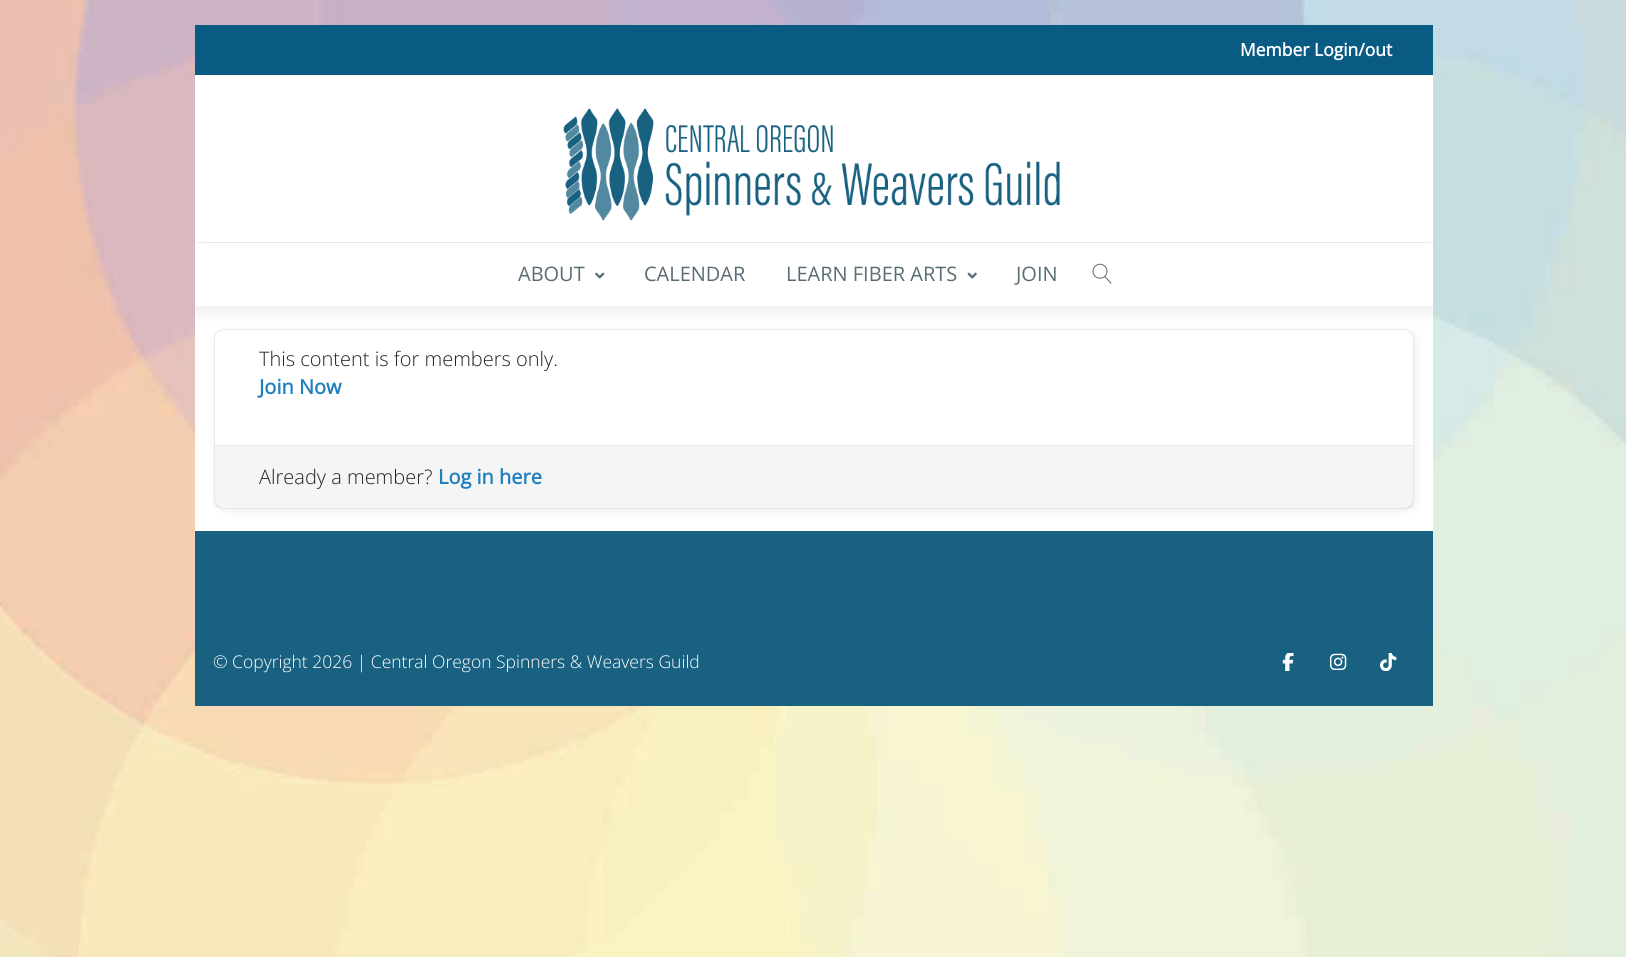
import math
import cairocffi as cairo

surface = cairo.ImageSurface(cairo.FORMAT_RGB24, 1626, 957)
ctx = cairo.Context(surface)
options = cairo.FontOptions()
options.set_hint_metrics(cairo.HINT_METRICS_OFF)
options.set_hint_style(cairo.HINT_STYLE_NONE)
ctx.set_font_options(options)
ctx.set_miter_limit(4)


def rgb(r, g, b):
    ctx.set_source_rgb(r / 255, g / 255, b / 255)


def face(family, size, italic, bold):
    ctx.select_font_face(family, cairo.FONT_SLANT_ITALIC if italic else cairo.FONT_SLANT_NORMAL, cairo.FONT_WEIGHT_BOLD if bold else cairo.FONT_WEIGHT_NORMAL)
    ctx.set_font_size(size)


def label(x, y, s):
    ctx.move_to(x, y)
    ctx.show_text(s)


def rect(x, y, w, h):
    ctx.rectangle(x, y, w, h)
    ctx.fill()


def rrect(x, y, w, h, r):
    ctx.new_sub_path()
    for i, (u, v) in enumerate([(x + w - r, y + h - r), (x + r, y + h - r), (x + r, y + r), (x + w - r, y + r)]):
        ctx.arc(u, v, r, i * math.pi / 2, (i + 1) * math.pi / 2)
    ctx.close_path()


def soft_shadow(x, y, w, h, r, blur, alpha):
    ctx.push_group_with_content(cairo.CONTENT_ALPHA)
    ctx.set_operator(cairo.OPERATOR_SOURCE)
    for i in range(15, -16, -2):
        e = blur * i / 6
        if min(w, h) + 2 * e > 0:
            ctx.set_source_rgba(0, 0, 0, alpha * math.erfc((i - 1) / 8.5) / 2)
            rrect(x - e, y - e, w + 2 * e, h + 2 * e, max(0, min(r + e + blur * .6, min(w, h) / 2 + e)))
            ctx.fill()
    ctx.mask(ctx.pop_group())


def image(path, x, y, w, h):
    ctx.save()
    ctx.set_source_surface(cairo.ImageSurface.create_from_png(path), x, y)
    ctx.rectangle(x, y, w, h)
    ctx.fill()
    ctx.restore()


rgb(255, 255, 255)
ctx.paint()
image('image0.png', 0, 0, 1626, 957)
rgb(255, 255, 255)
rect(195, 242, 1238, 289)
rgb(0, 0, 0)
soft_shadow(216, 331, 1200, 180, 10, 4.5, 0.07)
rgb(255, 255, 255)
rrect(214.5, 329.5, 1199, 179, 9.5)
ctx.fill_preserve()
rgb(232, 232, 232)
ctx.set_line_width(1)
ctx.stroke()
ctx.save()
ctx.rectangle(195, 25, 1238, 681)
ctx.clip()
rgb(0, 0, 0)
soft_shadow(195, 78, 1238, 230, 0, 9.5, 0.1)
ctx.restore()
rgb(9, 91, 132)
rect(195, 25, 1238, 50)
face('Open Sans', 17.5, 0, 1)
rgb(255, 255, 255)
label(1240, 56, 'Member Login/out')
rect(195, 75, 1238, 167)
image('image1.png', 563, 108, 497, 113)
rect(195, 243, 1238, 63)
face('Open Sans', 20, 0, 0)
rgb(89, 108, 115)
label(518, 281, 'ABOUT')
image('image2.png', 595, 272, 10, 7)
label(644, 281, 'CALENDAR')
label(786, 281, 'LEARN FIBER ARTS')
image('image3.png', 967, 272, 10, 7)
label(1016, 281, 'JOIN')
image('image4.png', 1092, 263, 20, 21)
face('Open Sans Light', 20, 0, 0)
rgb(34, 34, 34)
label(259, 366, 'This content is for members only.')
face('Open Sans', 20, 0, 1)
rgb(34, 128, 191)
label(259, 394, 'Join Now')
ctx.set_source_rgba(0, 0, 0, 0.04)
rect(215, 446, 1198, 62)
rgb(232, 232, 232)
rect(215, 445, 1198, 1)
face('Open Sans Light', 20, 0, 0)
rgb(34, 34, 34)
label(259, 484, 'Already a member?')
face('Open Sans', 20, 0, 1)
rgb(34, 128, 191)
label(438, 484, 'Log in here')
rgb(25, 97, 129)
rect(195, 531, 1238, 175)
face('Open Sans Light', 17.5, 0, 0)
rgb(255, 255, 255)
label(213, 668, '© Copyright 2026 | Central Oregon Spinners & Weavers Guild')
image('image5.png', 1282, 653, 12, 18)
image('image6.png', 1329, 653, 18, 17)
image('image7.png', 1379, 653, 18, 18)
surface.write_to_png('render.png')
